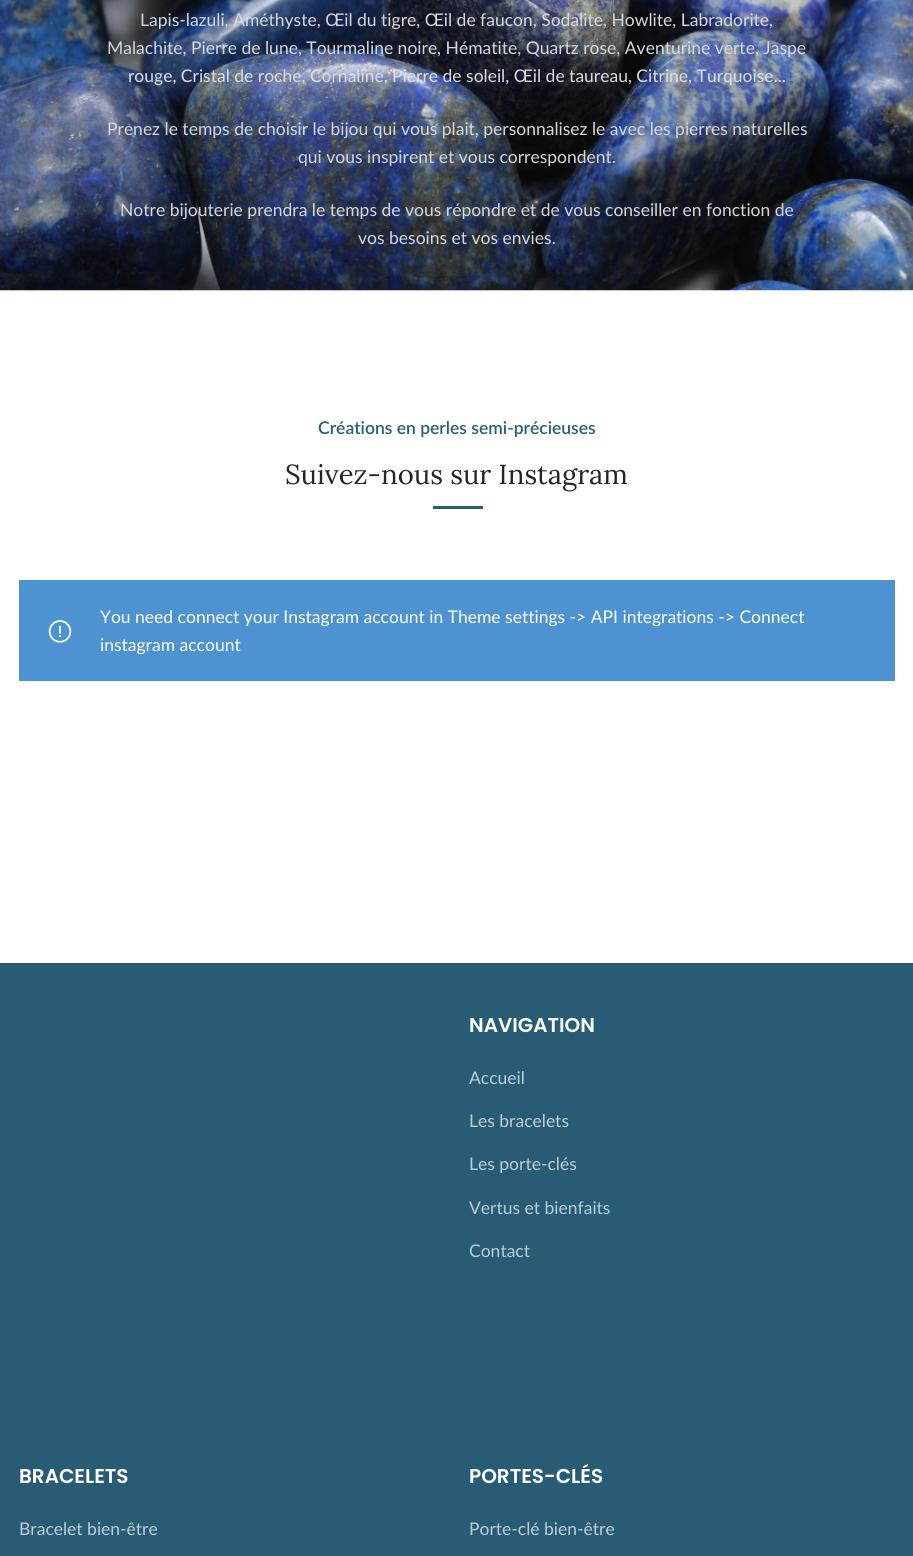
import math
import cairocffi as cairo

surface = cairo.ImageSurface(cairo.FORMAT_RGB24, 913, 1556)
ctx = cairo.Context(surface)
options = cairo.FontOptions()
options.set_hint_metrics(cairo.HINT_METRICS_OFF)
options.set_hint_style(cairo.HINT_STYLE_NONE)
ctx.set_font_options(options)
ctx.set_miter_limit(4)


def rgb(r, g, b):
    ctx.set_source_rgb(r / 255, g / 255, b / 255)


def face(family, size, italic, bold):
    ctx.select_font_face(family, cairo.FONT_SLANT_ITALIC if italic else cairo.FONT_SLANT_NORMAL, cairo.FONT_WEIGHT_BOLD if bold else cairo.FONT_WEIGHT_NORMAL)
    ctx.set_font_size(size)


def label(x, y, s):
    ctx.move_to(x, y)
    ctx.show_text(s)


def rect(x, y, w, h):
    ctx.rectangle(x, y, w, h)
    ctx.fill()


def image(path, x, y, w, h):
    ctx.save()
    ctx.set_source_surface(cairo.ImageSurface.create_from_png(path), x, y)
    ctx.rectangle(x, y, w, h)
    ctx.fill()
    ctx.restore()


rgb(255, 255, 255)
ctx.paint()
image('image0.png', 0, 0, 913, 291)
face('Lato', 17.5, 0, 0)
rgb(214, 216, 221)
label(140, 26, 'Lapis-lazuli, Améthyste, Œil du tigre, Œil de faucon, Sodalite, Howlite, Labradorite,')
label(107, 54, 'Malachite, Pierre de lune, Tourmaline noire, Hématite, Quartz rose, Aventurine verte, Jaspe')
rgb(220, 222, 228)
label(128, 82, 'rouge, Cristal de roche, Cornaline, Pierre de soleil, Œil de taureau, Citrine, Turquoise...')
rgb(214, 216, 221)
label(107, 135, 'Prenez le temps de choisir le bijou qui vous plait, personnalisez le avec les pierres naturelles')
label(298, 163, 'qui vous inspirent et vous correspondent.')
label(120, 216, 'Notre bijouterie prendra le temps de vous répondre et de vous conseiller en fonction de')
label(358, 244, 'vos besoins et vos envies.')
face('Lato SemiBold', 17.5, 0, 0)
rgb(40, 94, 120)
label(318, 434, 'Créations en perles semi-précieuses')
face('Lora', 27.5, 0, 0)
rgb(36, 36, 36)
label(285, 484, 'Suivez-nous sur Instagram')
rgb(40, 94, 120)
rect(433, 506, 50, 3)
rgb(77, 147, 209)
rect(19, 580, 876, 101)
image('image1.png', 48, 620, 24, 23)
face('Lato', 17.5, 0, 0)
rgb(255, 255, 255)
label(100, 623, 'You need connect your Instagram account in Theme settings -> API integrations -> Connect')
label(100, 651, 'instagram account')
rgb(40, 92, 117)
rect(0, 963, 913, 593)
face('Poppins SemiBold', 20, 0, 0)
rgb(255, 255, 255)
label(469, 1032, 'NAVIGATION')
face('Lato', 17.5, 0, 0)
rgb(191, 206, 214)
label(469, 1084, 'Accueil')
label(469, 1127, 'Les bracelets')
label(469, 1170, 'Les porte-clés')
label(469, 1214, 'Vertus et bienfaits')
label(469, 1257, 'Contact')
face('Poppins SemiBold', 20, 0, 0)
rgb(255, 255, 255)
label(19, 1483, 'BRACELETS')
face('Lato', 17.5, 0, 0)
rgb(191, 206, 214)
label(19, 1535, 'Bracelet bien-être')
face('Poppins SemiBold', 20, 0, 0)
rgb(255, 255, 255)
label(469, 1483, 'PORTES-CLÉS')
face('Lato', 17.5, 0, 0)
rgb(191, 206, 214)
label(469, 1535, 'Porte-clé bien-être')
surface.write_to_png('render.png')
